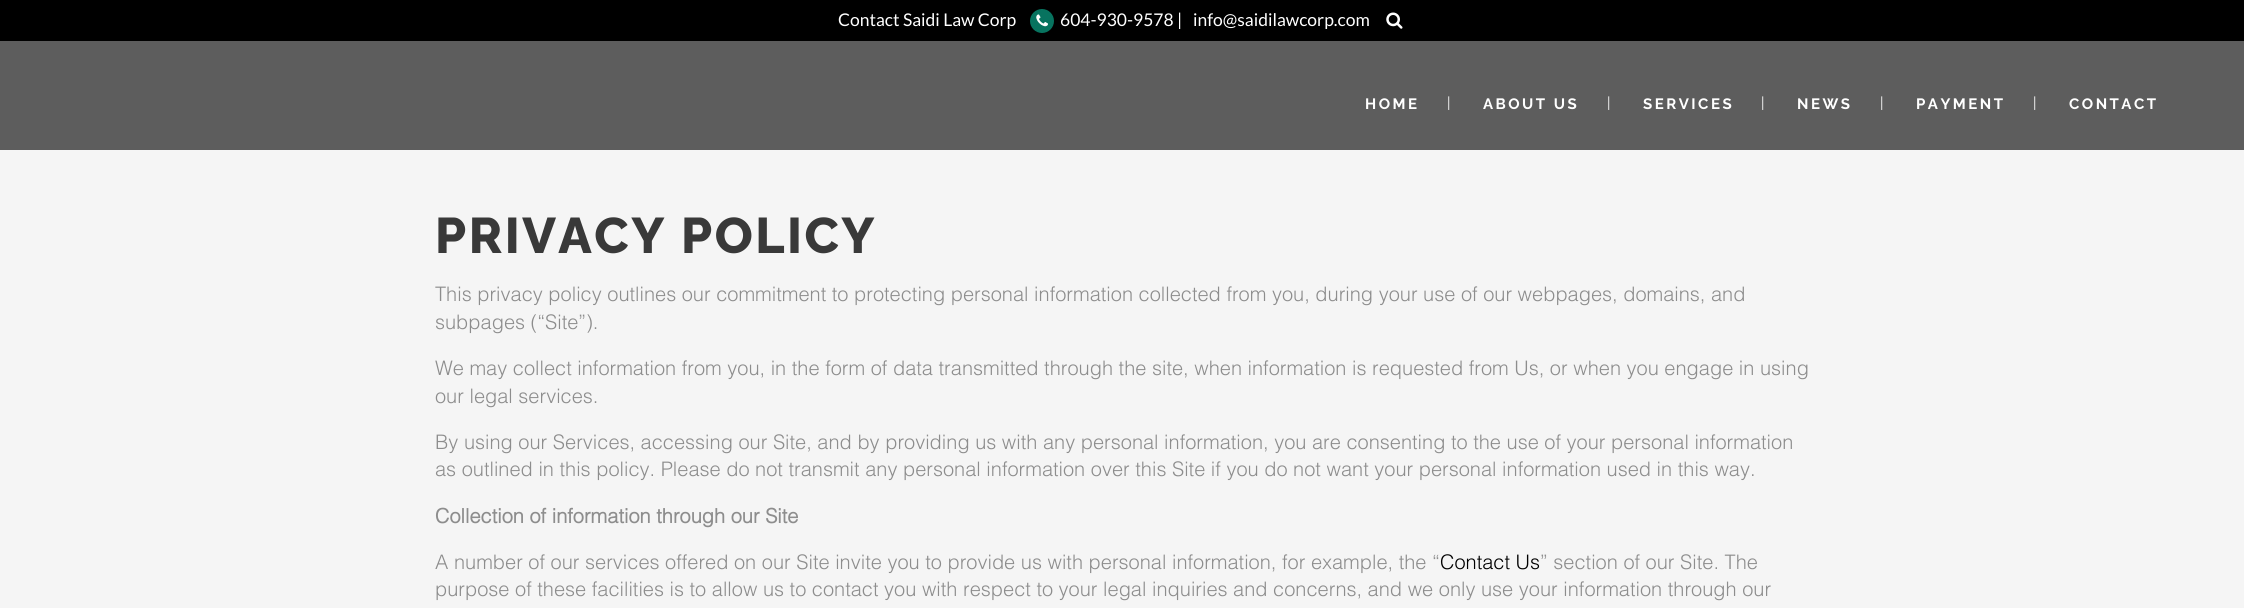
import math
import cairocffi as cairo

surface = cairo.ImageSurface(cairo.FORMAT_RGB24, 2244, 608)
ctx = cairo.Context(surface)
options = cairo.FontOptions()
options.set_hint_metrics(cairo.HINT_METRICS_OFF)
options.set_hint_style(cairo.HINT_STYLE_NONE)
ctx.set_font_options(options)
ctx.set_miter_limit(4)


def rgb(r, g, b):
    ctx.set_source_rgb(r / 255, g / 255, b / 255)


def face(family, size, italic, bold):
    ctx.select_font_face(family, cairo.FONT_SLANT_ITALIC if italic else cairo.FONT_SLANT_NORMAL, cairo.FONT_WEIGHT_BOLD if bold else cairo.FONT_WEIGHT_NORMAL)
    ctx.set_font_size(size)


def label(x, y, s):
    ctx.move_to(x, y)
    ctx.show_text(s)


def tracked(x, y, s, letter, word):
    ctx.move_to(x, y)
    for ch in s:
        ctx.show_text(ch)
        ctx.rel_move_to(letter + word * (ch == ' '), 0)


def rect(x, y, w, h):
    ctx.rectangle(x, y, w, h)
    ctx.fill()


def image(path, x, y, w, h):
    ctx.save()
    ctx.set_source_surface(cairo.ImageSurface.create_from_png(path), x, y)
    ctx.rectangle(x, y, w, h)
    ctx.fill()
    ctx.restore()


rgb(245, 245, 245)
ctx.paint()
rgb(0, 0, 0)
rect(0, 0, 2244, 41)
face('Lato', 17.5, 0, 0)
rgb(255, 255, 255)
label(838, 26, 'Contact Saidi Law Corp')
rgb(7, 115, 95)
ctx.new_path()
ctx.arc(1042, 21, 12, 0, 2 * math.pi)
ctx.fill()
image('image0.png', 1036, 14, 12, 13)
rgb(255, 255, 255)
label(1060, 26, '604-930-9578 |')
label(1193, 26, 'info@saidilawcorp.com')
image('image1.png', 1386, 12, 17, 17)
rgb(93, 93, 93)
rect(0, 41, 2244, 109)
face('Raleway', 15, 0, 1)
rgb(255, 255, 255)
tracked(1365, 109, 'HOME', 2.5, 0)
face('Raleway', 15, 0, 0)
label(1447, 108, '|')
face('Raleway', 15, 0, 1)
tracked(1483, 109, 'ABOUT US', 2.5, 0)
face('Raleway', 15, 0, 0)
label(1607, 108, '|')
face('Raleway', 15, 0, 1)
tracked(1643, 109, 'SERVICES', 2.5, 0)
face('Raleway', 15, 0, 0)
label(1761, 108, '|')
face('Raleway', 15, 0, 1)
tracked(1797, 109, 'NEWS', 2.5, 0)
face('Raleway', 15, 0, 0)
label(1880, 108, '|')
face('Raleway', 15, 0, 1)
tracked(1916, 109, 'PAYMENT', 2.5, 0)
face('Raleway', 15, 0, 0)
label(2033, 108, '|')
face('Raleway', 15, 0, 1)
tracked(2069, 109, 'CONTACT', 2.5, 0)
face('Raleway ExtraBold', 50, 0, 0)
rgb(57, 57, 57)
tracked(435, 253, 'PRIVACY POLICY', 2.5, 0)
face('Helvetica Light', 20, 0, 0)
rgb(141, 141, 141)
label(435, 301, 'This privacy policy outlines our commitment to protecting personal information collected from you, during your use of our webpages, domains, and')
label(435, 329, 'subpages (“Site”).')
label(435, 375, 'We may collect information from you, in the form of data transmitted through the site, when information is requested from Us, or when you engage in using')
label(435, 403, 'our legal services.')
label(435, 449, 'By using our Services, accessing our Site, and by providing us with any personal information, you are consenting to the use of your personal information')
label(435, 476, 'as outlined in this policy. Please do not transmit any personal information over this Site if you do not want your personal information used in this way.')
face('Helvetica', 20, 0, 1)
label(435, 523, 'Collection of information through our Site')
face('Helvetica Light', 20, 0, 0)
label(435, 569, 'A number of our services offered on our Site invite you to provide us with personal information, for example, the “')
rgb(0, 0, 0)
label(1440, 569, 'Contact Us')
rgb(141, 141, 141)
label(1540, 569, '” section of our Site. The')
label(435, 596, 'purpose of these facilities is to allow us to contact you with respect to your legal inquiries and concerns, and we only use your information through our')
surface.write_to_png('render.png')
